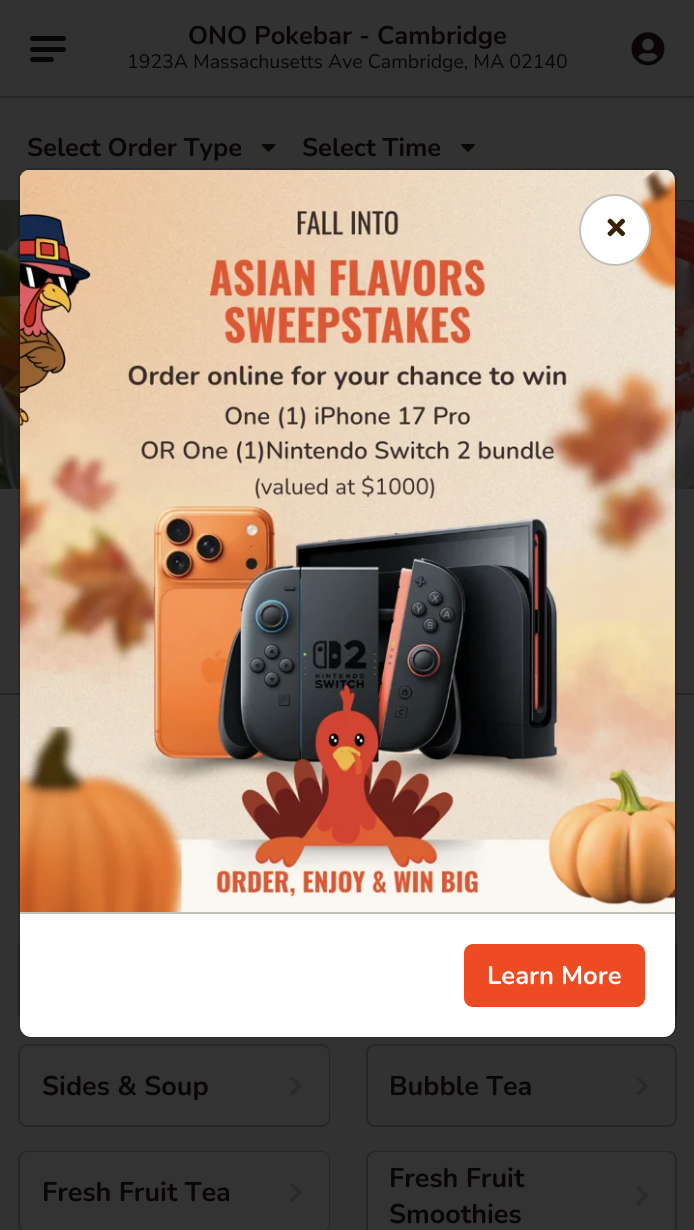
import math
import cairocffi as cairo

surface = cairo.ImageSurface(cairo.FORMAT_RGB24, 694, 1230)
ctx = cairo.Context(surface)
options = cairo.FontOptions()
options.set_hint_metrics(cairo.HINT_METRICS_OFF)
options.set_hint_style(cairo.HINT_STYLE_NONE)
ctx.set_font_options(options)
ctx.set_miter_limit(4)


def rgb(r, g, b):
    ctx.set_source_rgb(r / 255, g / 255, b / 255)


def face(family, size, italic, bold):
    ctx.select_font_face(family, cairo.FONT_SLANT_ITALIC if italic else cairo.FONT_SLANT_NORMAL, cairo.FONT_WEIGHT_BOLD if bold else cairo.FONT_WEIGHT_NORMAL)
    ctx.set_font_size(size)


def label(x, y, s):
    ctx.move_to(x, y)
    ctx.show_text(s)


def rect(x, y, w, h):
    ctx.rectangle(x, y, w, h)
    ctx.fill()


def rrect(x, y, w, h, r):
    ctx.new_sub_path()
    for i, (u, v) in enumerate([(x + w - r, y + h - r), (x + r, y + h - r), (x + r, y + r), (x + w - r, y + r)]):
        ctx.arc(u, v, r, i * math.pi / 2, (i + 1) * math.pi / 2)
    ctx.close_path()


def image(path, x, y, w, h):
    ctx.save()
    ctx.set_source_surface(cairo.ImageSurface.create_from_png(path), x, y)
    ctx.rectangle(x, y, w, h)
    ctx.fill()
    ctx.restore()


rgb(50, 50, 50)
ctx.paint()
rgb(36, 35, 32)
ctx.new_path()
ctx.move_to(0, 200)
ctx.line_to(0, 201)
ctx.line_to(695, 201)
ctx.line_to(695, 2)
ctx.line_to(694, 2)
ctx.line_to(694, 200)
ctx.close_path()
ctx.fill()
rgb(7, 7, 8)
rrect(30, 36, 36, 5, 2.5)
ctx.fill()
rrect(30, 47, 36, 5, 2.5)
ctx.fill()
rrect(30, 57, 24, 5, 2.5)
ctx.fill()
face('Nunito', 25.5, 0, 1)
rgb(10, 6, 5)
label(188, 44, 'ONO Pokebar - Cambridge')
face('Nunito', 19.5, 0, 0)
label(127, 68, '1923A Massachusetts Ave Cambridge, MA 02140')
image('image0.png', 631, 32, 34, 34)
rgb(39, 38, 37)
rect(0, 96, 694, 2)
face('Nunito', 25.5, 0, 1)
rgb(10, 6, 5)
label(27, 156, 'Select Order Type')
image('image1.png', 261, 144, 15, 8)
label(302, 156, 'Select Time')
image('image2.png', 461, 144, 14, 8)
rgb(39, 38, 37)
rect(0, 693, 694, 2)
image('image3.png', 0, 201, 694, 288)
rrect(19, 939, 310, 80, 8)
rgb(39, 38, 36)
ctx.stroke()
rrect(367, 939, 309, 80, 8)
ctx.stroke()
rrect(19, 1045, 310, 81, 8)
ctx.stroke()
rgb(51, 51, 51)
rrect(20, 1046, 309, 79, 8)
ctx.fill()
face('Nunito', 27, 0, 1)
rgb(10, 6, 5)
label(42, 1095, 'Sides & Soup')
image('image4.png', 290, 1077, 12, 18)
rrect(367, 1045, 309, 81, 8)
rgb(39, 38, 36)
ctx.stroke()
rgb(10, 6, 5)
label(389, 1095, 'Bubble Tea')
image('image5.png', 636, 1077, 12, 18)
rrect(19, 1152, 310, 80, 8)
rgb(39, 38, 36)
ctx.stroke()
rgb(51, 51, 51)
rrect(20, 1152, 309, 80, 8)
ctx.fill()
rgb(10, 6, 5)
label(42, 1201, 'Fresh Fruit Tea')
image('image6.png', 290, 1184, 12, 18)
rrect(367, 1152, 309, 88, 8)
rgb(39, 38, 36)
ctx.stroke()
rgb(51, 51, 51)
rrect(368, 1152, 307, 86, 8)
ctx.fill()
rgb(10, 6, 5)
label(389, 1187, 'Fresh Fruit')
image('image7.png', 636, 1187, 12, 19)
label(389, 1223, 'Smoothies')
rrect(19, 169, 657, 868, 11)
ctx.set_source_rgba(0, 0, 0, 0.18)
ctx.stroke()
image('image8.png', 20, 170, 655, 742)
rgb(255, 255, 255)
ctx.arc(615, 230, 36, 0, 2 * math.pi)
ctx.fill()
ctx.arc(615, 230, 35, 0, 2 * math.pi)
ctx.set_source_rgba(0.58, 0.553, 0.486, 0.55)
ctx.stroke()
image('image9.png', 607, 218, 19, 19)
rgb(255, 255, 255)
ctx.new_path()
ctx.move_to(20, 912)
ctx.line_to(675, 912)
ctx.line_to(675, 1026)
ctx.curve_to(675, 1032, 670, 1037, 664, 1037)
ctx.line_to(31, 1037)
ctx.curve_to(25, 1037, 20, 1032, 20, 1026)
ctx.close_path()
ctx.fill()
rgb(196, 192, 183)
rect(20, 912, 655, 2)
rgb(239, 75, 35)
rrect(465, 945, 179, 61, 8)
ctx.fill_preserve()
ctx.stroke()
face('Nunito', 25.5, 0, 1)
rgb(255, 255, 255)
label(487, 984, 'Learn More')
surface.write_to_png('render.png')
